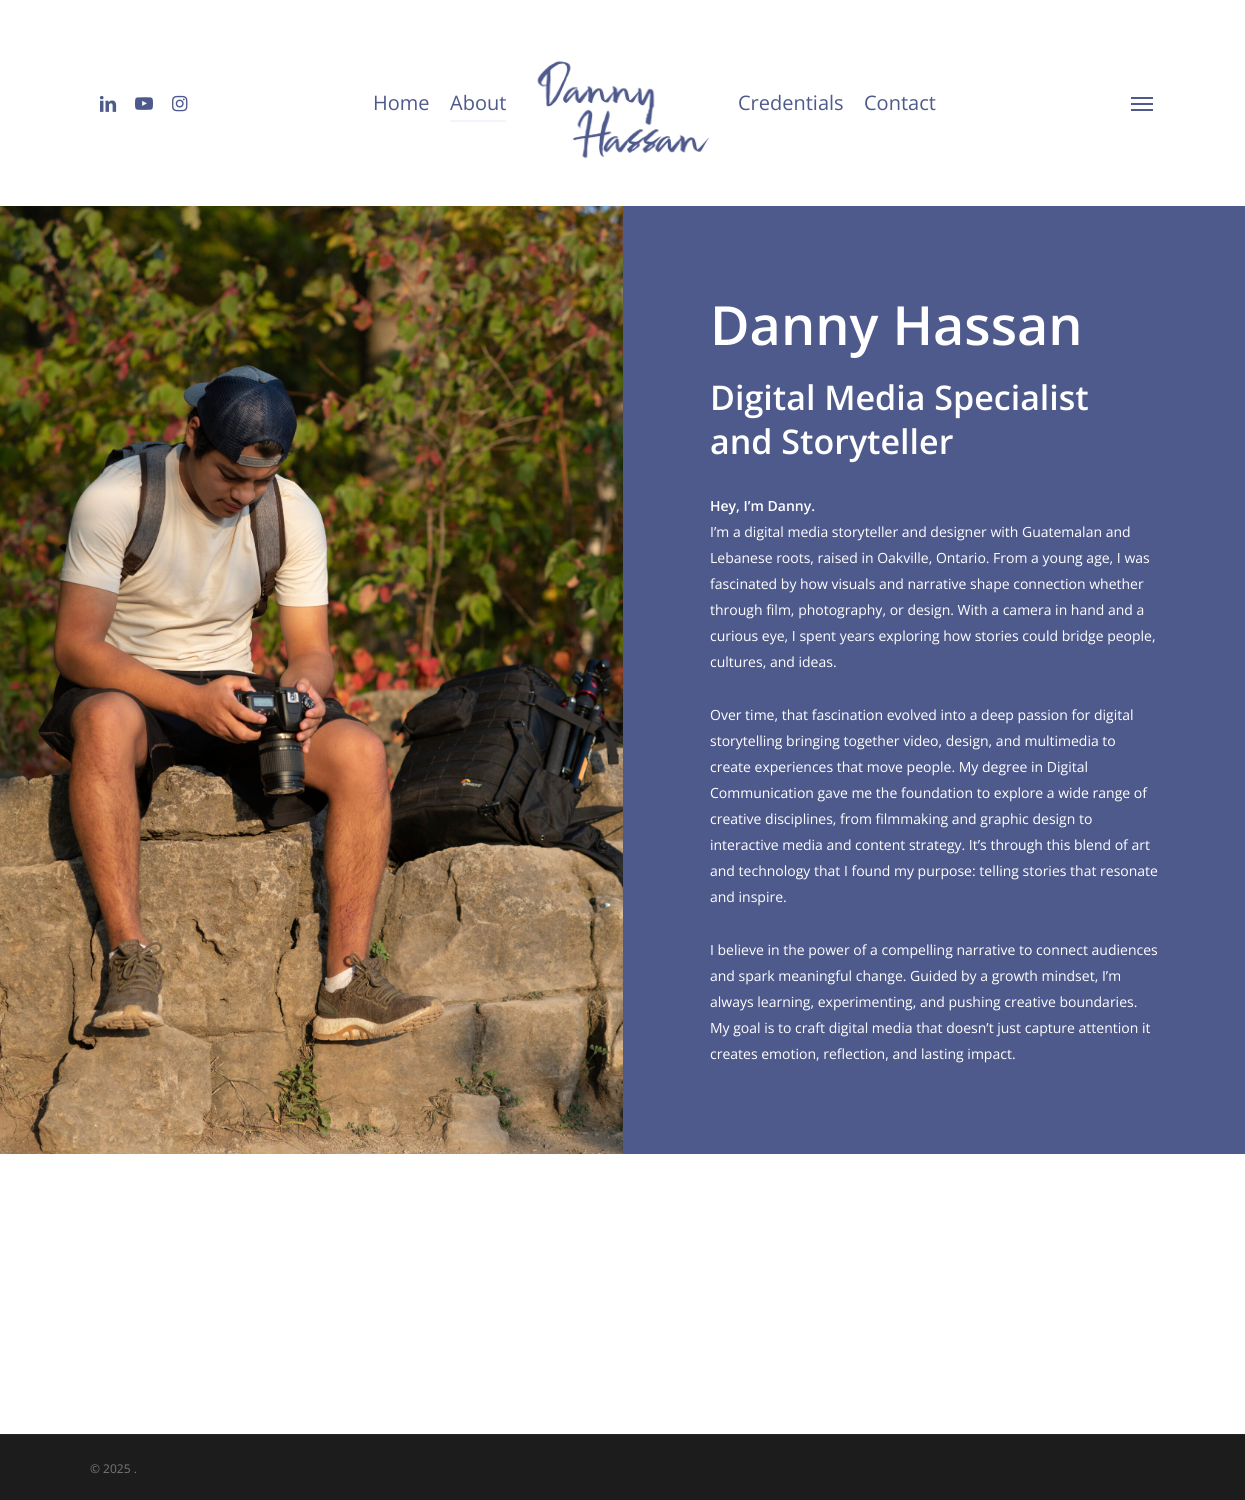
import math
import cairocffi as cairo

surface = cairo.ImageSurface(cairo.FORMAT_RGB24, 1245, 1500)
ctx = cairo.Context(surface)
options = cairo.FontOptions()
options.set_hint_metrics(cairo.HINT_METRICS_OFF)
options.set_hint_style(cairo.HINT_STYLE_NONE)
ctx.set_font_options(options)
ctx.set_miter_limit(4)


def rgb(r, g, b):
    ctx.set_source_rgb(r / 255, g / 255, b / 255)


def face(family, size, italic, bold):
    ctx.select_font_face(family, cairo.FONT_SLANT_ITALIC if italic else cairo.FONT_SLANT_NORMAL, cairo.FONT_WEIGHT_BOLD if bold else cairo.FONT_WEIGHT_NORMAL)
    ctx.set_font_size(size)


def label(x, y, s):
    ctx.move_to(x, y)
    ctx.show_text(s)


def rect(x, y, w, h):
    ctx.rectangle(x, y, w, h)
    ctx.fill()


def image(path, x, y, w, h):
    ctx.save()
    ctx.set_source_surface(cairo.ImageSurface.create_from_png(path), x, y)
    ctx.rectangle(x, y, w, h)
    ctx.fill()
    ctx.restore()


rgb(255, 255, 255)
ctx.paint()
image('image0.png', 537, 61, 172, 98)
image('image1.png', 99, 95, 18, 17)
image('image2.png', 135, 97, 18, 13)
image('image3.png', 172, 95, 16, 17)
face('Open Sans', 20, 0, 0)
rgb(78, 89, 140)
label(373, 110, 'Home')
label(450, 110, 'About')
rgb(248, 240, 251)
rect(450, 120, 56, 2)
rgb(78, 89, 140)
label(738, 110, 'Credentials')
label(864, 110, 'Contact')
rect(1131, 97, 22, 2)
rect(1131, 109, 22, 2)
rect(1131, 103, 22, 2)
image('image4.png', 0, 206, 623, 948)
rect(623, 206, 622, 948)
face('Open Sans SemiBold', 54, 0, 0)
rgb(255, 255, 255)
label(710, 345, 'Danny Hassan')
face('Open Sans SemiBold', 34, 0, 0)
label(710, 410, 'Digital Media Specialist')
label(710, 454, 'and Storyteller')
face('Open Sans SemiBold', 14, 0, 0)
label(710, 511, 'Hey, I’m Danny.')
face('Open Sans', 14, 0, 0)
label(710, 537, 'I’m a digital media storyteller and designer with Guatemalan and')
label(710, 563, 'Lebanese roots, raised in Oakville, Ontario. From a young age, I was')
label(710, 589, 'fascinated by how visuals and narrative shape connection whether')
label(710, 615, 'through film, photography, or design. With a camera in hand and a')
label(710, 641, 'curious eye, I spent years exploring how stories could bridge people,')
label(710, 667, 'cultures, and ideas.')
label(710, 720, 'Over time, that fascination evolved into a deep passion for digital')
label(710, 746, 'storytelling bringing together video, design, and multimedia to')
label(710, 772, 'create experiences that move people. My degree in Digital')
label(710, 798, 'Communication gave me the foundation to explore a wide range of')
label(710, 824, 'creative disciplines, from filmmaking and graphic design to')
label(710, 850, 'interactive media and content strategy. It’s through this blend of art')
label(710, 876, 'and technology that I found my purpose: telling stories that resonate')
label(710, 902, 'and inspire.')
label(710, 955, 'I believe in the power of a compelling narrative to connect audiences')
label(710, 981, 'and spark meaningful change. Guided by a growth mindset, I’m')
label(710, 1007, 'always learning, experimenting, and pushing creative boundaries.')
label(710, 1033, 'My goal is to craft digital media that doesn’t just capture attention it')
label(710, 1059, 'creates emotion, reflection, and lasting impact.')
rgb(37, 37, 37)
rect(0, 1434, 1245, 1)
rgb(28, 28, 28)
rect(0, 1435, 1245, 65)
face('Open Sans', 12, 0, 0)
rgb(119, 119, 119)
label(90, 1473, '© 2025 .')
surface.write_to_png('render.png')
